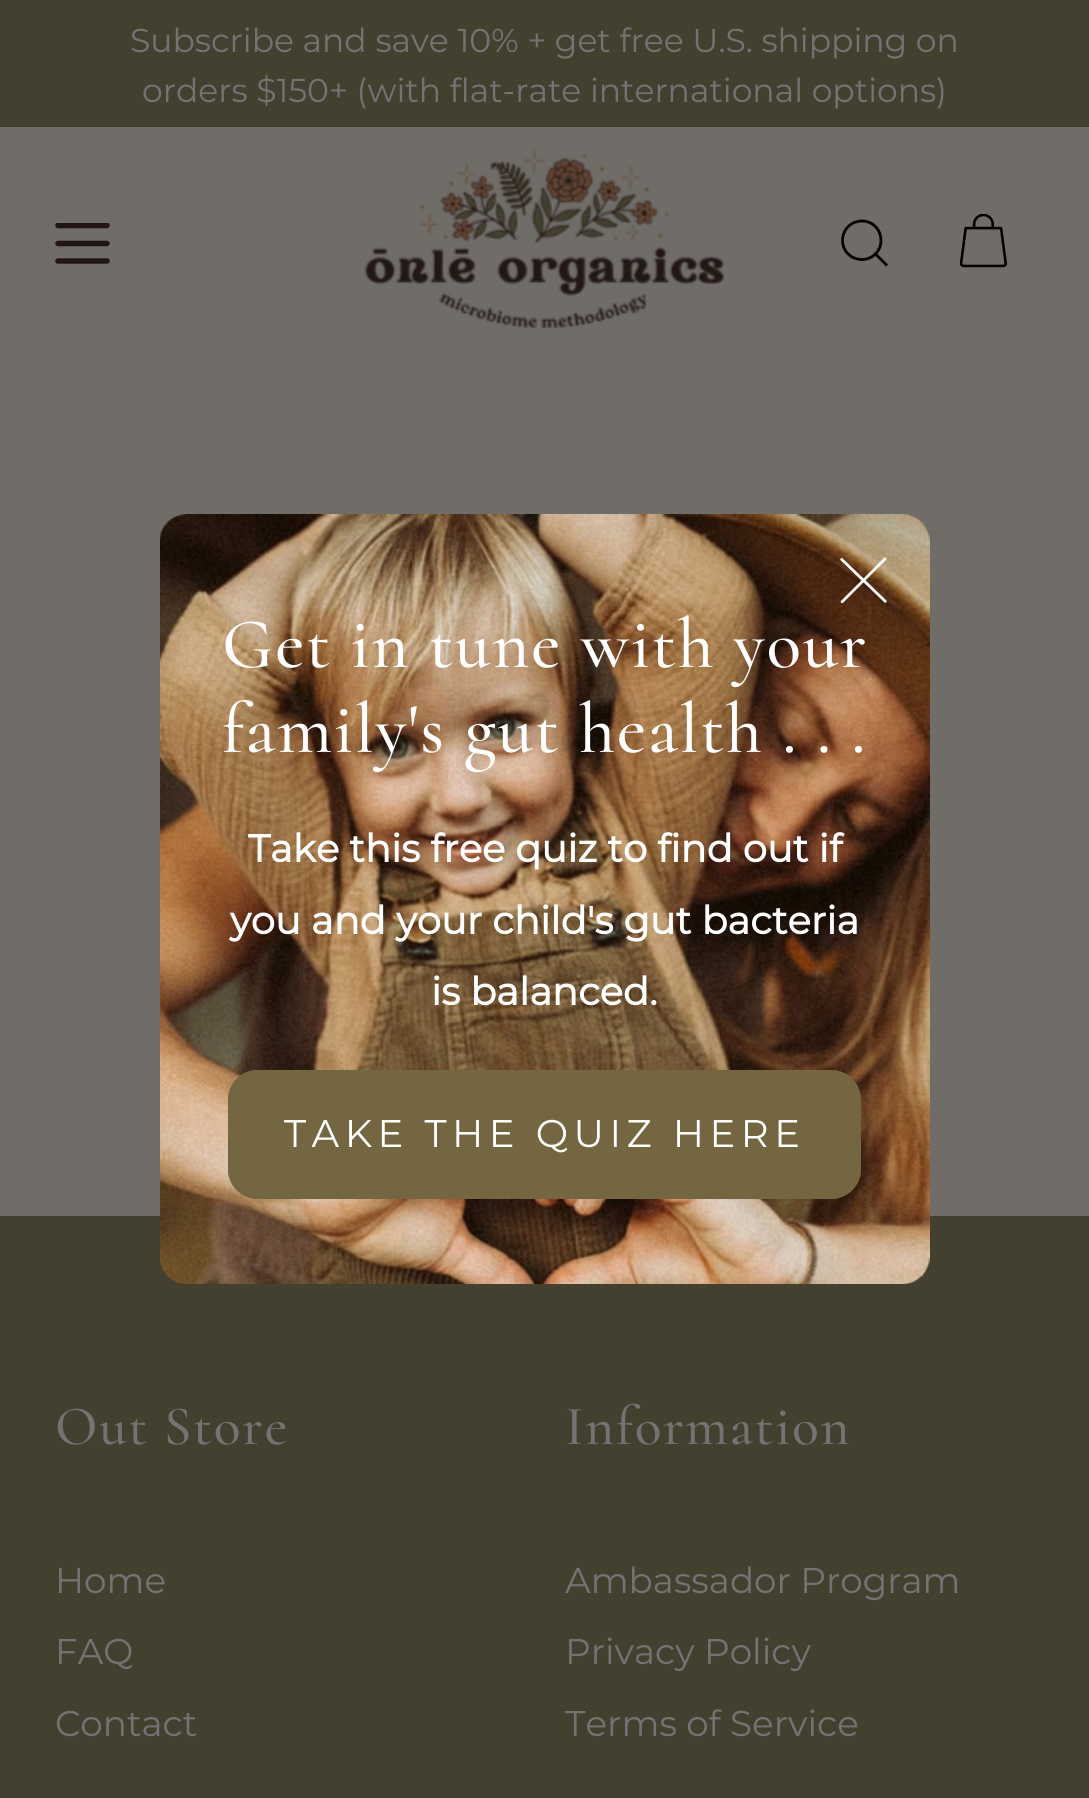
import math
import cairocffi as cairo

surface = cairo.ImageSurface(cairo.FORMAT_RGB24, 1089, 1798)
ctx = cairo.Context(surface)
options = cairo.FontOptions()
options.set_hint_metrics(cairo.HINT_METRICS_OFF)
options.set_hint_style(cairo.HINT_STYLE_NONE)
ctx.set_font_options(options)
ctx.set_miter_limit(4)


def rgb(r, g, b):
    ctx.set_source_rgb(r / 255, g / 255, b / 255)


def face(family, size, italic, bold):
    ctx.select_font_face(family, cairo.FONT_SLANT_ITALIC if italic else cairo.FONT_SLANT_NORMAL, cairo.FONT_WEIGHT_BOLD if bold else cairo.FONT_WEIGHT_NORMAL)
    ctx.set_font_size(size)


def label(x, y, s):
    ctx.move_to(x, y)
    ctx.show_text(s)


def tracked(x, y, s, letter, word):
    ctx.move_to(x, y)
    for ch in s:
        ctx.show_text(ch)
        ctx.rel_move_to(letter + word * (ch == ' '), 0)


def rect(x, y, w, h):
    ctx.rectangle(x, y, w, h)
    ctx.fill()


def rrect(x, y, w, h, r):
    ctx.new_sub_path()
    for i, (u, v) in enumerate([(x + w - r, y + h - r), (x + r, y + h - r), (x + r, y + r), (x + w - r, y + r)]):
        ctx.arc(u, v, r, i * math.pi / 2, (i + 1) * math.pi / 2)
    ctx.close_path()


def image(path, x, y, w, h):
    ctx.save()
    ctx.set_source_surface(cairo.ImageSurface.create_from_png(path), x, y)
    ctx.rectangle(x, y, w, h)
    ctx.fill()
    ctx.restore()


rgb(112, 108, 104)
ctx.paint()
rgb(68, 64, 47)
rect(0, 0, 1089, 127)
face('Montserrat', 33, 0, 0)
rgb(115, 115, 115)
label(130, 52, 'Subscribe and save 10% + get free U.S. shipping on')
label(142, 102, 'orders $150+ (with flat-rate international options)')
ctx.save()
ctx.rectangle(55, 223, 55, 41)
ctx.clip()
ctx.new_path()
ctx.move_to(58, 225.5)
ctx.line_to(107, 225.5)
ctx.move_to(58, 243.5)
ctx.line_to(107, 243.5)
ctx.move_to(58, 261)
ctx.line_to(107, 261)
rgb(34, 22, 20)
ctx.set_line_width(5.5)
ctx.set_line_cap(cairo.LINE_CAP_ROUND)
ctx.set_line_join(cairo.LINE_JOIN_ROUND)
ctx.stroke()
ctx.restore()
image('image0.png', 364, 147, 361, 181)
ctx.new_path()
ctx.move_to(862, 259.5)
ctx.curve_to(872.5, 259.5, 881, 251, 881, 240.5)
ctx.curve_to(881, 229.5, 872.5, 221, 862, 221)
ctx.curve_to(851, 221, 842.5, 229.5, 842.5, 240.5)
ctx.curve_to(842.5, 251, 851, 259.5, 862, 259.5)
ctx.close_path()
rgb(0, 0, 0)
ctx.set_line_width(2.8)
ctx.set_line_cap(cairo.LINE_CAP_ROUND)
ctx.set_line_join(cairo.LINE_JOIN_ROUND)
ctx.stroke()
ctx.new_path()
ctx.move_to(886, 264.5)
ctx.line_to(875.5, 254)
ctx.set_line_cap(cairo.LINE_CAP_SQUARE)
ctx.stroke()
image('image1.png', 960, 214, 48, 54)
rgb(68, 64, 47)
rect(0, 1216, 1089, 582)
image('image2.png', 160, 514, 770, 770)
image('image3.png', 840, 557, 47, 47)
face('Cormorant Medium', 71.5, 0, 0)
rgb(255, 255, 255)
tracked(222, 667, 'Get in tune with your', 1.75, 0)
tracked(222, 752, 'family\'s gut health . . .', 1.75, 0)
face('Montserrat', 38.5, 0, 1)
label(248, 862, 'Take this free quiz to find out if')
label(230, 934, 'you and your child\'s gut bacteria')
label(431, 1005, 'is balanced.')
rgb(116, 102, 65)
rrect(228, 1070, 633, 129, 30)
ctx.fill()
rrect(229.5, 1071.5, 630, 126, 28.5)
ctx.set_line_width(3)
ctx.set_line_cap(cairo.LINE_CAP_BUTT)
ctx.set_line_join(cairo.LINE_JOIN_MITER)
ctx.stroke()
face('Montserrat', 38.5, 0, 0)
rgb(255, 255, 255)
tracked(284, 1147, 'TAKE THE QUIZ HERE', 5.5, 0)
face('Cormorant Medium', 55.5, 0, 0)
rgb(115, 115, 115)
tracked(55, 1444, 'Out Store', 1.75, 0)
face('Montserrat', 35.75, 0, 0)
label(55, 1593, 'Home')
label(55, 1664, 'FAQ')
label(55, 1736, 'Contact')
face('Cormorant Medium', 55.5, 0, 0)
tracked(565, 1444, 'Information', 1.75, 0)
face('Montserrat', 35.75, 0, 0)
label(565, 1593, 'Ambassador Program')
label(565, 1664, 'Privacy Policy')
label(565, 1736, 'Terms of Service')
surface.write_to_png('render.png')
